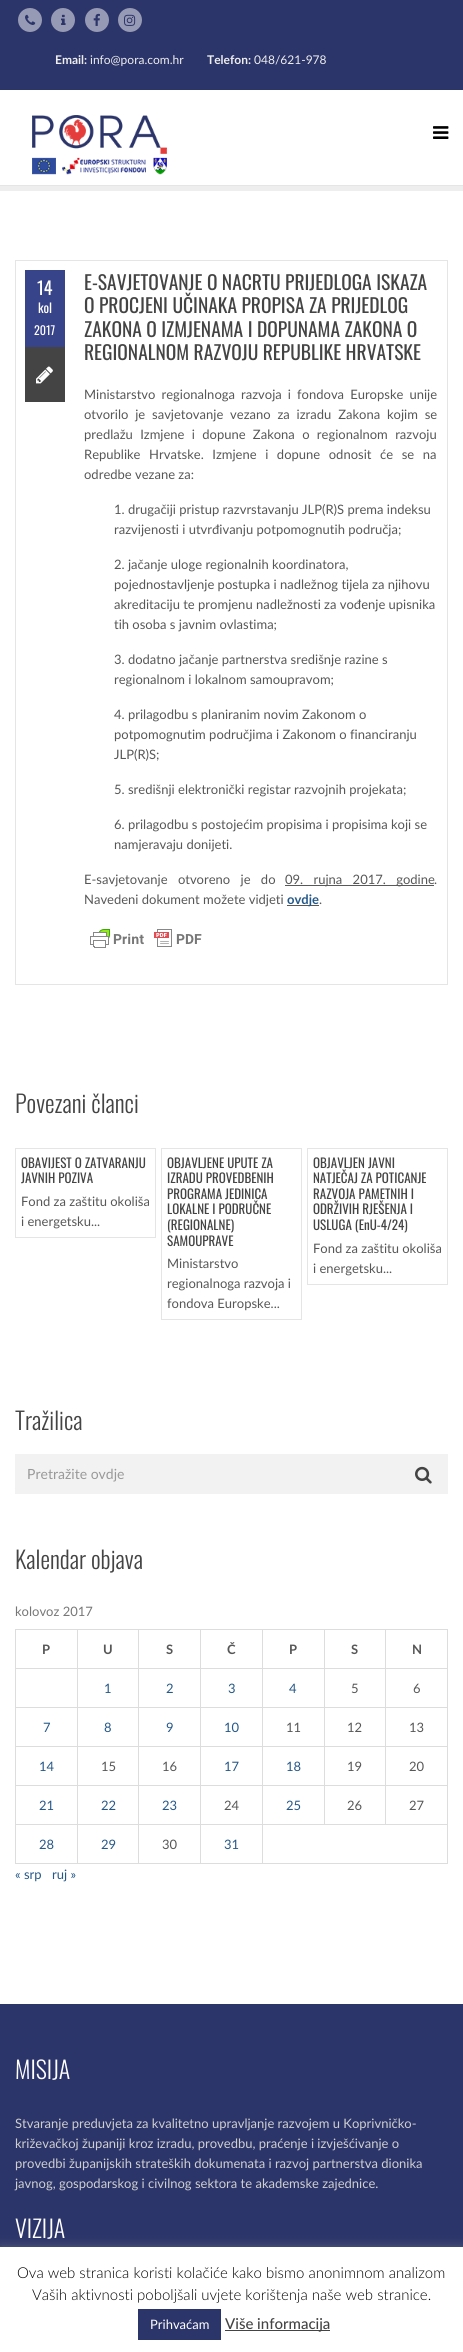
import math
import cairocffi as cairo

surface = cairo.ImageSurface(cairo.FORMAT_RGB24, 463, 2352)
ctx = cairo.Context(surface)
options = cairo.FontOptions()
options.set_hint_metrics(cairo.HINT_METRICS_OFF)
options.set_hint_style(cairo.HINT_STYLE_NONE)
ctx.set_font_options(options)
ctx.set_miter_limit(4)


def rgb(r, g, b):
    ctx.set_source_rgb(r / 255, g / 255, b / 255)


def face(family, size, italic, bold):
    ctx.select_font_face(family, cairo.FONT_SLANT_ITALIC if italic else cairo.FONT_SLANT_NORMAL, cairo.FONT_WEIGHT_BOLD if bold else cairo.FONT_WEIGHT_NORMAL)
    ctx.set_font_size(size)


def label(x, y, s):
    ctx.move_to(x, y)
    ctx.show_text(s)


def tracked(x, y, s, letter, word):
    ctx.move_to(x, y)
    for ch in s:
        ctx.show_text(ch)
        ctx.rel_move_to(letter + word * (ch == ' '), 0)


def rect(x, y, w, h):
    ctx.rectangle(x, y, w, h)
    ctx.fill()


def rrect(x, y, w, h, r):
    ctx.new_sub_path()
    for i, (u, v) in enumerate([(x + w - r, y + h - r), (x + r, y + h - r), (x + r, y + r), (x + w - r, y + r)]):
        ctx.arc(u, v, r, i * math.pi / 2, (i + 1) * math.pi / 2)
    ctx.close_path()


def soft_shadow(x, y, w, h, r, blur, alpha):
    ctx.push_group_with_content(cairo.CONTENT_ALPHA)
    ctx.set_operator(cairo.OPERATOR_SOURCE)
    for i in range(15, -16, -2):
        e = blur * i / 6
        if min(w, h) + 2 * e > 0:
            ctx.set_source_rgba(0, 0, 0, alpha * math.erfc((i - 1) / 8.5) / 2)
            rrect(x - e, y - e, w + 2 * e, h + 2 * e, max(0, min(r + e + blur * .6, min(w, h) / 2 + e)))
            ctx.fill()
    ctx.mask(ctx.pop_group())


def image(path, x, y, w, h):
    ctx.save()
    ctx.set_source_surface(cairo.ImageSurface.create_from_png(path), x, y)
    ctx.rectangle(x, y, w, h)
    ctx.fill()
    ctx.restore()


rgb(255, 255, 255)
ctx.paint()
rgb(44, 53, 105)
rect(0, 0, 463, 90)
rgb(150, 154, 180)
ctx.arc(30, 20, 12, 0, 2 * math.pi)
ctx.fill()
image('image0.png', 25, 14, 11, 11)
ctx.arc(63, 20, 12, 0, 2 * math.pi)
ctx.fill()
image('image1.png', 61, 14, 5, 11)
ctx.arc(97, 20, 12, 0, 2 * math.pi)
ctx.fill()
image('image2.png', 93, 13, 7, 13)
ctx.arc(130, 20, 12, 0, 2 * math.pi)
ctx.fill()
image('image3.png', 124, 14, 12, 12)
face('Lato', 12, 0, 1)
rgb(238, 238, 238)
label(55, 64, 'Email:')
face('Lato', 12, 0, 0)
label(90, 64, 'info@pora.com.hr')
face('Lato', 12, 0, 1)
label(207, 64, 'Telefon:')
face('Lato', 12, 0, 0)
label(254, 64, '048/621-978')
rgb(229, 229, 229)
rect(0, 185, 463, 1)
image('image4.png', 32, 115, 135, 60)
image('image5.png', 433, 126, 16, 13)
rgb(238, 238, 238)
rect(0, 186, 463, 5)
rgb(229, 229, 229)
rect(447, 260, 1, 725)
rect(15, 984, 433, 1)
rect(15, 260, 1, 725)
rect(16, 260, 431, 1)
rgb(56, 68, 137)
rect(25, 270, 40, 77)
face('Oswald', 18, 0, 0)
rgb(255, 255, 255)
label(37, 295, '14')
face('Oswald', 13, 0, 0)
label(38, 313, 'kol')
face('Oswald', 12, 0, 0)
label(34, 335, '2017')
rgb(68, 68, 68)
rect(25, 347, 40, 55)
image('image6.png', 36, 366, 17, 18)
face('Oswald', 19.5, 0, 0)
label(84, 290, 'E-SAVJETOVANJE O NACRTU PRIJEDLOGA ISKAZA')
label(84, 313, 'O PROCJENI UČINAKA PROPISA ZA PRIJEDLOG')
label(84, 337, 'ZAKONA O IZMJENAMA I DOPUNAMA ZAKONA O')
label(84, 360, 'REGIONALNOM RAZVOJU REPUBLIKE HRVATSKE')
face('Lato', 13, 0, 0)
rgb(87, 87, 87)
tracked(84, 399, 'Ministarstvo regionalnoga razvoja i fondova Europske unije', 0, 2.75)
tracked(84, 419, 'otvorilo je savjetovanje vezano za izradu Zakona kojim se', 0, 3.5)
tracked(84, 439, 'predlažu Izmjene i dopune Zakona o regionalnom razvoju', 0, 4)
tracked(84, 459, 'Republike Hrvatske. Izmjene i dopune odnosit će se na', 0, 5.25)
label(84, 479, 'odredbe vezane za:')
label(114, 514, '1. drugačiji pristup razvrstavanju JLP(R)S prema indeksu')
label(114, 534, 'razvijenosti i utvrđivanju potpomognutih područja;')
label(114, 569, '2. jačanje uloge regionalnih koordinatora,')
label(114, 589, 'pojednostavljenje postupka i nadležnog tijela za njihovu')
label(114, 609, 'akreditaciju te promjenu nadležnosti za vođenje upisnika')
label(114, 629, 'tih osoba s javnim ovlastima;')
label(114, 664, '3. dodatno jačanje partnerstva središnje razine s')
label(114, 684, 'regionalnom i lokalnom samoupravom;')
label(114, 719, '4. prilagodbu s planiranim novim Zakonom o')
label(114, 739, 'potpomognutim područjima i Zakonom o financiranju')
label(114, 759, 'JLP(R)S;')
label(114, 794, '5. središnji elektronički registar razvojnih projekata;')
label(114, 829, '6. prilagodbu s postojećim propisima i propisima koji se')
label(114, 849, 'namjeravaju donijeti.')
tracked(84, 884, 'E-savjetovanje otvoreno je do', 0, 7)
rgb(89, 89, 89)
rect(285, 885, 149, 1)
rgb(87, 87, 87)
tracked(285, 884, '09. rujna 2017. godine', 0, 7)
label(434, 884, '.')
label(84, 904, 'Navedeni dokument možete vidjeti')
rgb(89, 89, 89)
rect(287, 905, 32, 1)
face('Lato', 13, 0, 1)
rgb(36, 88, 137)
label(287, 904, 'ovdje')
face('Lato', 13, 0, 0)
rgb(87, 87, 87)
label(319, 904, '.')
image('image7.png', 90, 929, 112, 19)
face('Oswald Light', 24, 0, 0)
rgb(68, 68, 68)
label(15, 1113, 'Povezani članci')
ctx.rectangle(15.5, 1148.5, 140, 89)
rgb(229, 229, 229)
ctx.set_line_width(1)
ctx.stroke()
face('Oswald', 13, 0, 0)
rgb(68, 68, 68)
label(21, 1168, 'OBAVIJEST O ZATVARANJU')
label(21, 1183, 'JAVNIH POZIVA')
face('Lato', 13, 0, 0)
rgb(87, 87, 87)
label(21, 1206, 'Fond za zaštitu okoliša')
label(21, 1226, 'i energetsku...')
ctx.rectangle(161.5, 1148.5, 140, 171)
rgb(229, 229, 229)
ctx.stroke()
face('Oswald', 13, 0, 0)
rgb(68, 68, 68)
label(167, 1168, 'OBJAVLJENE UPUTE ZA')
label(167, 1183, 'IZRADU PROVEDBENIH')
label(167, 1199, 'PROGRAMA JEDINICA')
label(167, 1214, 'LOKALNE I PODRUČNE')
label(167, 1230, '(REGIONALNE)')
label(167, 1246, 'SAMOUPRAVE')
face('Lato', 13, 0, 0)
rgb(87, 87, 87)
label(167, 1268, 'Ministarstvo')
label(167, 1288, 'regionalnoga razvoja i')
label(167, 1308, 'fondova Europske...')
ctx.rectangle(307.5, 1148.5, 140, 136)
rgb(229, 229, 229)
ctx.stroke()
face('Oswald', 13, 0, 0)
rgb(68, 68, 68)
label(313, 1168, 'OBJAVLJEN JAVNI')
label(313, 1183, 'NATJEČAJ ZA POTICANJE')
label(313, 1199, 'RAZVOJA PAMETNIH I')
label(313, 1214, 'ODRŽIVIH RJEŠENJA I')
label(313, 1230, 'USLUGA (EnU-4/24)')
face('Lato', 13, 0, 0)
rgb(87, 87, 87)
label(313, 1253, 'Fond za zaštitu okoliša')
label(313, 1273, 'i energetsku...')
face('Oswald Light', 24, 0, 0)
rgb(68, 68, 68)
label(15, 1430, 'Tražilica')
rgb(242, 242, 242)
rect(15, 1454, 433, 40)
face('Lato', 14, 0, 0)
rgb(153, 153, 153)
label(27, 1479, 'Pretražite ovdje')
image('image8.png', 415, 1466, 17, 18)
face('Oswald Light', 24, 0, 0)
rgb(68, 68, 68)
label(15, 1569, 'Kalendar objava')
face('Lato', 13, 0, 0)
rgb(119, 119, 119)
label(15, 1616, 'kolovoz 2017')
rgb(221, 221, 221)
rect(385, 1629, 63, 1)
rect(385, 1668, 63, 1)
rect(385, 1707, 63, 1)
rect(385, 1746, 63, 1)
rect(385, 1785, 63, 1)
rect(262, 1824, 186, 1)
rect(385, 1785, 1, 40)
rect(324, 1785, 62, 1)
rect(385, 1746, 1, 40)
rect(324, 1746, 62, 1)
rect(385, 1707, 1, 40)
rect(324, 1707, 62, 1)
rect(385, 1668, 1, 40)
rect(324, 1668, 62, 1)
rect(385, 1629, 1, 40)
rect(324, 1629, 62, 1)
rect(324, 1785, 1, 40)
rect(262, 1785, 63, 1)
rect(324, 1746, 1, 40)
rect(262, 1746, 63, 1)
rect(324, 1707, 1, 40)
rect(262, 1707, 63, 1)
rect(324, 1668, 1, 40)
rect(262, 1668, 63, 1)
rect(324, 1629, 1, 40)
rect(262, 1629, 63, 1)
rect(447, 1824, 1, 40)
rect(262, 1863, 186, 1)
rect(262, 1824, 1, 40)
rect(200, 1824, 63, 1)
rect(262, 1785, 1, 40)
rect(200, 1785, 63, 1)
rect(262, 1746, 1, 40)
rect(200, 1746, 63, 1)
rect(262, 1707, 1, 40)
rect(200, 1707, 63, 1)
rect(262, 1668, 1, 40)
rect(200, 1668, 63, 1)
rect(262, 1629, 1, 40)
rect(200, 1629, 63, 1)
rect(200, 1863, 63, 1)
rect(200, 1824, 1, 40)
rect(138, 1824, 63, 1)
rect(200, 1785, 1, 40)
rect(138, 1785, 63, 1)
rect(200, 1746, 1, 40)
rect(138, 1746, 63, 1)
rect(200, 1707, 1, 40)
rect(138, 1707, 63, 1)
rect(200, 1668, 1, 40)
rect(138, 1668, 63, 1)
rect(200, 1629, 1, 40)
rect(138, 1629, 63, 1)
rect(138, 1863, 63, 1)
rect(138, 1824, 1, 40)
rect(77, 1824, 62, 1)
rect(138, 1785, 1, 40)
rect(77, 1785, 62, 1)
rect(138, 1746, 1, 40)
rect(77, 1746, 62, 1)
rect(138, 1707, 1, 40)
rect(77, 1707, 62, 1)
rect(138, 1668, 1, 40)
rect(77, 1668, 62, 1)
rect(138, 1629, 1, 40)
rect(77, 1629, 62, 1)
rect(77, 1863, 62, 1)
rect(77, 1824, 1, 40)
rect(15, 1824, 63, 1)
rect(77, 1785, 1, 40)
rect(15, 1785, 63, 1)
rect(77, 1746, 1, 40)
rect(15, 1746, 63, 1)
rect(77, 1707, 1, 40)
rect(15, 1707, 63, 1)
rect(77, 1668, 1, 40)
rect(15, 1668, 63, 1)
rect(77, 1629, 1, 40)
rect(15, 1629, 63, 1)
rect(15, 1863, 63, 1)
rect(15, 1824, 1, 40)
rect(15, 1785, 1, 40)
rect(15, 1746, 1, 40)
rect(15, 1707, 1, 40)
rect(15, 1668, 1, 40)
rect(15, 1629, 1, 40)
face('Lato', 13, 0, 1)
rgb(87, 87, 87)
label(42, 1654, 'P')
label(103, 1654, 'U')
label(166, 1654, 'S')
label(227, 1654, 'Č')
label(289, 1654, 'P')
label(351, 1654, 'S')
rgb(221, 221, 221)
rect(447, 1785, 1, 40)
rect(447, 1746, 1, 40)
rect(447, 1707, 1, 40)
rect(447, 1668, 1, 40)
rect(447, 1629, 1, 40)
rgb(87, 87, 87)
label(412, 1654, 'N')
face('Lato', 13, 0, 0)
rgb(36, 88, 137)
label(104, 1693, '1')
label(166, 1693, '2')
label(228, 1693, '3')
label(289, 1693, '4')
rgb(87, 87, 87)
label(351, 1693, '5')
label(413, 1693, '6')
rgb(36, 88, 137)
label(43, 1732, '7')
label(104, 1732, '8')
label(166, 1732, '9')
label(224, 1732, '10')
rgb(87, 87, 87)
label(286, 1732, '11')
label(347, 1732, '12')
label(409, 1732, '13')
rgb(36, 88, 137)
label(39, 1771, '14')
rgb(87, 87, 87)
label(101, 1771, '15')
label(162, 1771, '16')
rgb(36, 88, 137)
label(224, 1771, '17')
label(286, 1771, '18')
rgb(87, 87, 87)
label(347, 1771, '19')
label(409, 1771, '20')
rgb(36, 88, 137)
label(39, 1810, '21')
label(101, 1810, '22')
label(162, 1810, '23')
rgb(87, 87, 87)
label(224, 1810, '24')
rgb(36, 88, 137)
label(286, 1810, '25')
rgb(87, 87, 87)
label(347, 1810, '26')
label(409, 1810, '27')
rgb(36, 88, 137)
label(39, 1849, '28')
label(101, 1849, '29')
rgb(87, 87, 87)
label(162, 1849, '30')
rgb(36, 88, 137)
label(224, 1849, '31')
label(15, 1879, '« srp')
label(52, 1879, 'ruj »')
rgb(44, 53, 105)
rect(0, 2004, 463, 243)
face('Oswald Light', 24, 0, 0)
rgb(255, 255, 255)
label(15, 2079, 'MISIJA')
face('Lato', 13, 0, 0)
rgb(207, 207, 207)
label(15, 2128, 'Stvaranje preduvjeta za kvalitetno upravljanje razvojem u Koprivničko-')
label(15, 2148, 'križevačkoj županiji kroz izradu, provedbu, praćenje i izvješćivanje o')
label(15, 2168, 'provedbi županijskih strateških dokumenata i razvoj partnerstva dionika')
label(15, 2188, 'javnog, gospodarskog i civilnog sektora te akademske zajednice.')
face('Oswald Light', 24, 0, 0)
rgb(255, 255, 255)
label(15, 2238, 'VIZIJA')
rgb(172, 171, 171)
soft_shadow(0, 2246, 463, 105, 0, 5, 0.3)
rgb(255, 255, 255)
rect(0, 2247, 463, 105)
face('Lato Light', 15, 0, 0)
rgb(0, 0, 0)
label(17, 2278, 'Ova web stranica koristi kolačiće kako bismo anonimnom analizom')
label(32, 2300, 'Vaših aktivnosti poboljšali uvjete korištenja naše web stranice.')
rgb(44, 53, 105)
rect(138, 2309, 83, 31)
face('Lato', 13, 0, 0)
rgb(255, 255, 255)
label(150, 2329, 'Prihvaćam')
rgb(68, 68, 68)
rect(225, 2330, 105, 1)
face('Lato Medium', 15, 0, 0)
label(225, 2329, 'Više informacija')
surface.write_to_png('render.png')
